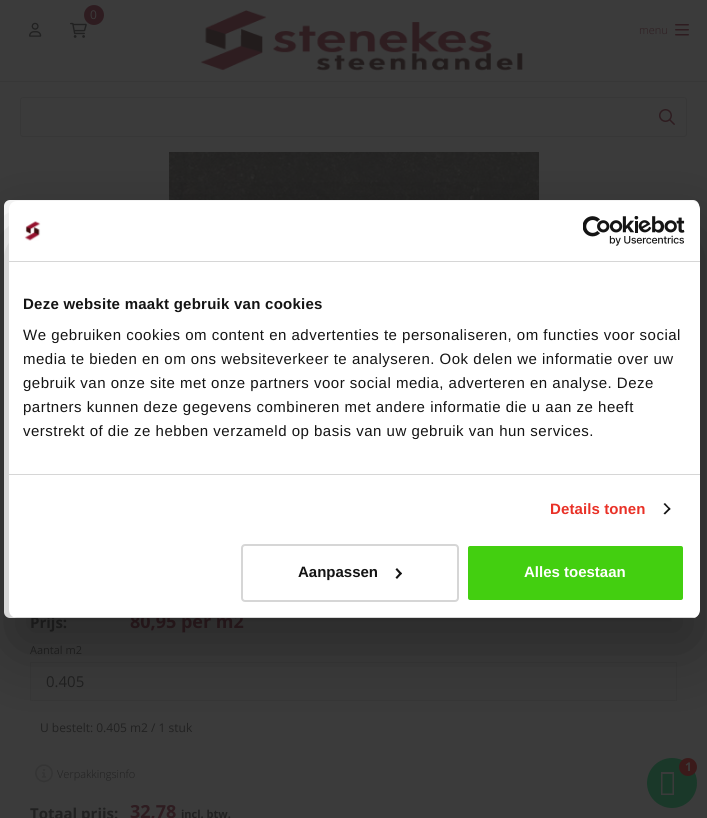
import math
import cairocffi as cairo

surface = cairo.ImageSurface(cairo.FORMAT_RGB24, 707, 818)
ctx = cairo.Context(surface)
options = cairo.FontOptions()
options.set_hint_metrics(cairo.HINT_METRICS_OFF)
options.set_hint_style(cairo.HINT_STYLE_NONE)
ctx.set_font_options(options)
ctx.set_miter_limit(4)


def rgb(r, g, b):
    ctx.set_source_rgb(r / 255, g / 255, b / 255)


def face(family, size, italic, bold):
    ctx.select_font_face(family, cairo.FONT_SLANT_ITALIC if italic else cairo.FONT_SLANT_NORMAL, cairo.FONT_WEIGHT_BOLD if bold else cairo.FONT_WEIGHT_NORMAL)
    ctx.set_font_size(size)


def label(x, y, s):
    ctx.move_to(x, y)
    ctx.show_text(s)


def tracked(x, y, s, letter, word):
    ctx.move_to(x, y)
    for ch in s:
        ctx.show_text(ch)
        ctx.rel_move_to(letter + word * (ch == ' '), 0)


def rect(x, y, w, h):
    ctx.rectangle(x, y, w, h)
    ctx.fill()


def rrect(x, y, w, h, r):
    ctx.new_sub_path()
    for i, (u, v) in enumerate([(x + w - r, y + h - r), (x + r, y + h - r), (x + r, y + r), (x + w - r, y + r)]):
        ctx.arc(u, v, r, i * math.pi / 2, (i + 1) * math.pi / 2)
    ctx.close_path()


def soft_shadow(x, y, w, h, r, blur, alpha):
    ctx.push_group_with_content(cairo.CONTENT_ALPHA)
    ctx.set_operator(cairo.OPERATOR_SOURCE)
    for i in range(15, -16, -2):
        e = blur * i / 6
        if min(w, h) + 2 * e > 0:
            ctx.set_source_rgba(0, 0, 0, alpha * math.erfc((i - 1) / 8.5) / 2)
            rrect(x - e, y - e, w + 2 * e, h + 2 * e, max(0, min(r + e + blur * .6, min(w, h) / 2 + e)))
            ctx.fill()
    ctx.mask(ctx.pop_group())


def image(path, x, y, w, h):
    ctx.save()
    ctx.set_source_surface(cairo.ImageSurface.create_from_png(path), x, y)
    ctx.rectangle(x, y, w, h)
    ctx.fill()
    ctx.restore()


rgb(59, 59, 59)
ctx.paint()
image('image0.png', 70, 22, 17, 16)
rgb(46, 28, 32)
ctx.arc(94, 15, 10, 0, 2 * math.pi)
ctx.fill()
face('Open Sans', 12, 0, 0)
rgb(59, 59, 59)
label(90, 19, '0')
image('image1.png', 29, 22, 13, 15)
image('image2.png', 200, 10, 323, 61)
face('Open Sans Light', 11, 0, 0)
rgb(46, 28, 32)
label(639, 34, 'menu')
image('image3.png', 675, 24, 14, 12)
rgb(55, 55, 55)
rect(0, 81, 707, 1)
rrect(20.5, 97.5, 666, 39, 2.5)
ctx.set_line_width(1)
ctx.stroke()
image('image4.png', 659, 109, 16, 16)
image('image5.png', 169, 152, 370, 48)
face('Open Sans', 15, 0, 1)
rgb(33, 33, 33)
label(30, 628, 'Prijs:')
face('Open Sans', 18, 0, 1)
rgb(46, 28, 32)
label(130, 628, '80,95 per m2')
face('Open Sans', 11, 0, 0)
rgb(33, 33, 33)
label(30, 654, 'Aantal m2')
ctx.rectangle(30.5, 662.5, 646, 38)
rgb(56, 56, 56)
ctx.stroke()
face('Open Sans', 15, 0, 0)
rgb(33, 33, 33)
label(46, 687, '0.405')
face('Open Sans', 12, 0, 0)
label(40, 732, 'U bestelt: 0.405 m2 / 1 stuk')
image('image6.png', 35, 764, 18, 19)
face('Open Sans Light', 11, 0, 0)
label(57, 778, 'Verpakkingsinfo')
face('Open Sans', 15, 0, 1)
label(30, 819, 'Totaal prijs:')
face('Open Sans', 18, 0, 1)
rgb(46, 28, 32)
label(130, 818, '32,78')
face('Open Sans', 11, 0, 1)
rgb(33, 33, 33)
label(181, 818, 'incl. btw.')
rgb(26, 56, 41)
ctx.new_path()
ctx.arc(672, 783, 25, 0, 2 * math.pi)
ctx.fill()
rgb(59, 26, 26)
ctx.arc(688, 767, 9, 0, 2 * math.pi)
ctx.fill()
face('Open Sans', 12, 0, 1)
rgb(59, 59, 59)
label(685, 771, '1')
ctx.new_path()
ctx.move_to(661, 795)
ctx.line_to(661, 772)
ctx.line_to(674, 772)
ctx.line_to(674, 795)
ctx.close_path()
ctx.move_to(662.5, 793.5)
ctx.line_to(672.5, 793.5)
ctx.line_to(672.5, 774)
ctx.line_to(662.5, 774)
ctx.close_path()
ctx.fill()
rgb(255, 255, 255)
rrect(4, 200, 695, 418, 6)
ctx.fill()
rgb(0, 0, 0)
soft_shadow(9, 233, 691, 417, 8, 34, 0.3)
rgb(255, 255, 255)
rrect(9, 201, 691, 417, 8)
ctx.fill()
rgb(214, 214, 214)
rect(9, 261, 691, 1)
image('image7.png', 24, 221, 17, 20)
image('image8.png', 583, 216, 102, 30)
rect(9, 474, 691, 1)
face('Liberation Sans', 15, 0, 1)
rgb(20, 20, 20)
tracked(23, 309, 'Deze website maakt gebruik van cookies', 0.25, 0)
face('Liberation Sans', 15, 0, 0)
tracked(23, 340, 'We gebruiken cookies om content en advertenties te personaliseren, om functies voor social', 0.5, 0)
tracked(23, 364, 'media te bieden en om ons websiteverkeer te analyseren. Ook delen we informatie over uw', 0.5, 0)
tracked(23, 388, 'gebruik van onze site met onze partners voor social media, adverteren en analyse. Deze', 0.5, 0)
tracked(23, 412, 'partners kunnen deze gegevens combineren met andere informatie die u aan ze heeft', 0.5, 0)
tracked(23, 436, 'verstrekt of die ze hebben verzameld op basis van uw gebruik van hun services.', 0.5, 0)
face('Liberation Sans', 15, 0, 1)
rgb(233, 49, 39)
tracked(550, 514, 'Details tonen', 0.1, 0)
rgb(20, 20, 20)
ctx.new_path()
ctx.move_to(665, 503)
ctx.line_to(670.5, 509)
ctx.line_to(669.5, 510)
ctx.line_to(663.5, 504)
ctx.close_path()
ctx.fill()
ctx.new_path()
ctx.move_to(669.5, 507.5)
ctx.line_to(670.5, 509)
ctx.line_to(665, 514.5)
ctx.line_to(663.5, 513.5)
ctx.close_path()
ctx.fill()
ctx.save()
rrect(9, 201, 691, 417, 8)
ctx.clip()
rgb(214, 214, 214)
rect(9, 617, 691, 1)
ctx.restore()
rrect(242, 545, 216, 56, 3)
rgb(214, 214, 214)
ctx.set_line_width(2)
ctx.stroke()
rgb(20, 20, 20)
label(298, 577, 'Aanpassen')
ctx.new_path()
ctx.move_to(397, 568)
ctx.line_to(402, 573.5)
ctx.line_to(400.5, 575)
ctx.line_to(395.5, 569.5)
ctx.close_path()
ctx.fill()
ctx.new_path()
ctx.move_to(400.5, 572)
ctx.line_to(402, 573.5)
ctx.line_to(397, 579)
ctx.line_to(395.5, 577.5)
ctx.close_path()
ctx.fill()
rgb(67, 207, 16)
rrect(467, 545, 217, 56, 3)
ctx.fill_preserve()
rgb(255, 255, 255)
ctx.stroke()
label(524, 577, 'Alles toestaan')
surface.write_to_png('render.png')
